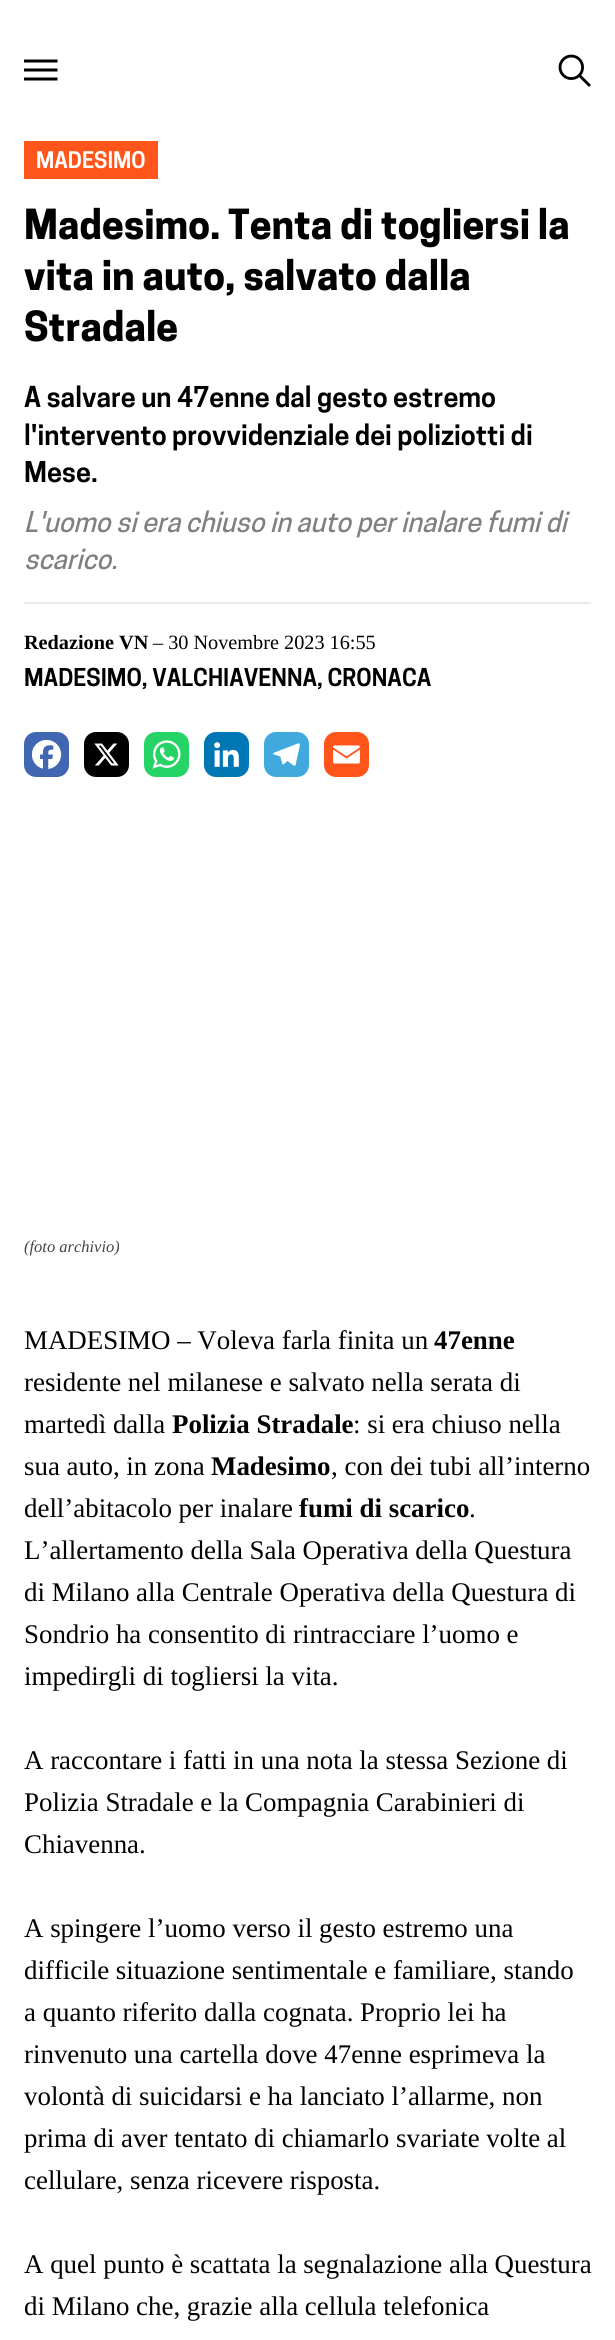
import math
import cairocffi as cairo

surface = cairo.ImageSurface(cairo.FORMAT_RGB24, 615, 2340)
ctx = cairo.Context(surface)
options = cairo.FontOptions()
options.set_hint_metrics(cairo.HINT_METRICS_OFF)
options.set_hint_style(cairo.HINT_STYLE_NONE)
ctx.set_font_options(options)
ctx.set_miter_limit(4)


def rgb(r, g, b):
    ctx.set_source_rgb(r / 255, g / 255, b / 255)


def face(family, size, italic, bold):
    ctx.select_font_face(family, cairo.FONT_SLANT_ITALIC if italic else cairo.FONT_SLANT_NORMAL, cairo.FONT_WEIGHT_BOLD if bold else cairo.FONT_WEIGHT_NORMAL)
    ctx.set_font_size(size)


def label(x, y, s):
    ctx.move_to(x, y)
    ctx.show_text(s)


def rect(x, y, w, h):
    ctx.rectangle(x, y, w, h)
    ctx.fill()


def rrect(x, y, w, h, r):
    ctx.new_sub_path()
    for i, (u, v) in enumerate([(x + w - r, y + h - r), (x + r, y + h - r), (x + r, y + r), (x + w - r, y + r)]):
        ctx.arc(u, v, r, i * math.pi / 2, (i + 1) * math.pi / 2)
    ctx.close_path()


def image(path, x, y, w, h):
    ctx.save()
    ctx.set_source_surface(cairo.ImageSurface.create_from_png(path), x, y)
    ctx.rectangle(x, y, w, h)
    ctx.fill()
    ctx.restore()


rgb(255, 255, 255)
ctx.paint()
rgb(0, 0, 0)
ctx.new_path()
ctx.move_to(24, 77.5)
ctx.line_to(57.5, 77.5)
ctx.line_to(57.5, 80.5)
ctx.line_to(24, 80.5)
ctx.close_path()
ctx.move_to(24, 68.5)
ctx.line_to(57.5, 68.5)
ctx.line_to(57.5, 71.5)
ctx.line_to(24, 71.5)
ctx.close_path()
ctx.move_to(24, 59.5)
ctx.line_to(57.5, 59.5)
ctx.line_to(57.5, 62.5)
ctx.line_to(24, 62.5)
ctx.close_path()
ctx.fill()
image('image0.png', 558, 54, 33, 33)
rgb(255, 85, 27)
rect(24, 141, 134, 38)
face('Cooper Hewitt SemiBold', 21.5, 0, 0)
rgb(255, 255, 255)
label(36, 168, 'MADESIMO')
face('Cooper Hewitt', 39, 0, 1)
rgb(0, 0, 0)
label(24, 239, 'Madesimo. Tenta di togliersi la')
label(24, 290, 'vita in auto, salvato dalla')
label(24, 341, 'Stradale')
face('Cooper Hewitt SemiBold', 27, 0, 0)
label(24, 407, 'A salvare un 47enne dal gesto estremo')
label(24, 445, 'l\'intervento provvidenziale dei poliziotti di')
label(24, 482, 'Mese.')
face('Cooper Hewitt Medium', 27, 1, 0)
rgb(128, 128, 128)
label(24, 532, 'L\'uomo si era chiuso in auto per inalare fumi di')
label(24, 569, 'scarico.')
rgb(234, 234, 234)
rect(24, 602, 567, 2)
face('Liberation Serif', 20.25, 0, 1)
rgb(0, 0, 0)
label(24, 649, 'Redazione VN')
face('Liberation Serif', 20.25, 0, 0)
label(153, 649, '– 30 Novembre 2023 16:55')
face('Cooper Hewitt SemiBold', 23.1, 0, 0)
label(24, 686, 'MADESIMO, VALCHIAVENNA, CRONACA')
rgb(66, 103, 178)
rrect(24, 732, 45, 45, 12)
ctx.fill()
image('image1.png', 31, 739, 31, 30)
rgb(0, 0, 0)
rrect(84, 732, 45, 45, 12)
ctx.fill()
image('image2.png', 94, 743, 25, 23)
rgb(37, 211, 102)
rrect(144, 732, 45, 45, 12)
ctx.fill()
image('image3.png', 152, 740, 29, 29)
rgb(0, 119, 181)
rrect(204, 732, 45, 45, 12)
ctx.fill()
image('image4.png', 214, 742, 25, 25)
rgb(66, 169, 222)
rrect(264, 732, 45, 45, 12)
ctx.fill()
image('image5.png', 273, 743, 27, 23)
rgb(255, 85, 27)
rrect(324, 732, 45, 45, 12)
ctx.fill()
image('image6.png', 333, 745, 27, 19)
face('Liberation Serif', 16.5, 1, 0)
rgb(68, 68, 68)
label(24, 1252, '(foto archivio)')
face('Liberation Serif', 26.9, 0, 0)
rgb(0, 0, 0)
label(24, 1349, 'MADESIMO – Voleva farla finita un')
face('Liberation Serif', 26.9, 0, 1)
label(434, 1349, '47enne')
face('Liberation Serif', 26.9, 0, 0)
label(24, 1391, 'residente nel milanese e salvato nella serata di')
label(24, 1433, 'martedì dalla')
face('Liberation Serif', 26.9, 0, 1)
label(172, 1433, 'Polizia Stradale')
face('Liberation Serif', 26.9, 0, 0)
label(353, 1433, ': si era chiuso nella')
label(24, 1475, 'sua auto, in zona')
face('Liberation Serif', 26.9, 0, 1)
label(211, 1475, 'Madesimo')
face('Liberation Serif', 26.9, 0, 0)
label(331, 1475, ', con dei tubi all’interno')
label(24, 1517, 'dell’abitacolo per inalare')
face('Liberation Serif', 26.9, 0, 1)
label(299, 1517, 'fumi di scarico')
face('Liberation Serif', 26.9, 0, 0)
label(469, 1517, '.')
label(24, 1559, 'L’allertamento della Sala Operativa della Questura')
label(24, 1601, 'di Milano alla Centrale Operativa della Questura di')
label(24, 1643, 'Sondrio ha consentito di rintracciare l’uomo e')
label(24, 1685, 'impedirgli di togliersi la vita.')
label(24, 1769, 'A raccontare i fatti in una nota la stessa Sezione di')
label(24, 1811, 'Polizia Stradale e la Compagnia Carabinieri di')
label(24, 1853, 'Chiavenna.')
label(24, 1937, 'A spingere l’uomo verso il gesto estremo una')
label(24, 1979, 'difficile situazione sentimentale e familiare, stando')
label(24, 2021, 'a quanto riferito dalla cognata. Proprio lei ha')
label(24, 2063, 'rinvenuto una cartella dove 47enne esprimeva la')
label(24, 2105, 'volontà di suicidarsi e ha lanciato l’allarme, non')
label(24, 2147, 'prima di aver tentato di chiamarlo svariate volte al')
label(24, 2189, 'cellulare, senza ricevere risposta.')
label(24, 2273, 'A quel punto è scattata la segnalazione alla Questura')
label(24, 2315, 'di Milano che, grazie alla cellula telefonica')
surface.write_to_png('render.png')
